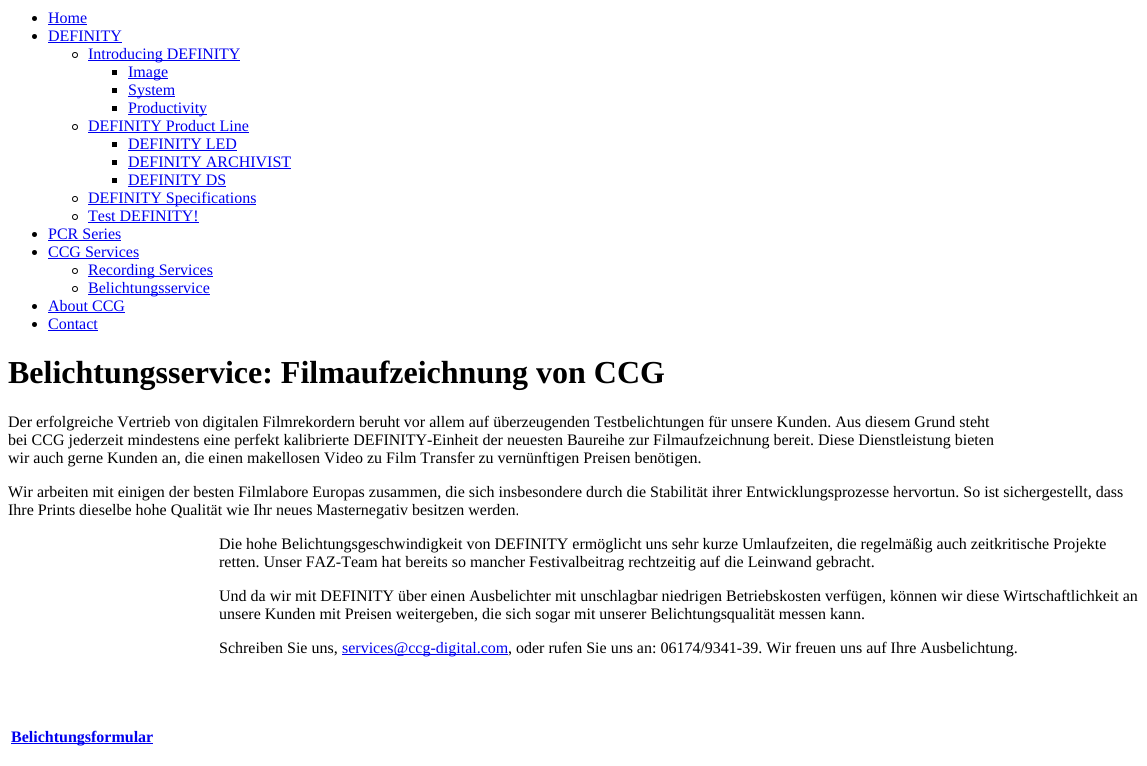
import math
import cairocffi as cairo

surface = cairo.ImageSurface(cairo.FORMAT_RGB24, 1147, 766)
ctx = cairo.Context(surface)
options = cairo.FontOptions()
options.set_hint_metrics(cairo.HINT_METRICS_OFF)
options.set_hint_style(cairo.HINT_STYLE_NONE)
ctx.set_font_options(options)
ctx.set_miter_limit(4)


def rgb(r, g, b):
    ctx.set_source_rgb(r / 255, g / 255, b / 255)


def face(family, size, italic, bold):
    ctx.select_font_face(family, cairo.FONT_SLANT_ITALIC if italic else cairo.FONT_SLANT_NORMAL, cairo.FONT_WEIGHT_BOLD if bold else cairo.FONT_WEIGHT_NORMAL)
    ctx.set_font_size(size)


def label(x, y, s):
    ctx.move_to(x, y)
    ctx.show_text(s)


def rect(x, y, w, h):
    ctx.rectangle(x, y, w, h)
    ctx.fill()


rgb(255, 255, 255)
ctx.paint()
rgb(0, 0, 0)
ctx.arc(34.5, 18.5, 2.5, 0, 2 * math.pi)
ctx.fill()
face('Liberation Serif', 16, 0, 0)
rgb(0, 0, 238)
label(48, 23, 'Home')
rect(48, 24, 39, 1)
rgb(0, 0, 0)
ctx.new_path()
ctx.arc(34.5, 36.5, 2.5, 0, 2 * math.pi)
ctx.fill()
rgb(0, 0, 238)
label(48, 41, 'DEFINITY')
rect(48, 42, 74, 1)
ctx.new_path()
ctx.arc(75, 55, 2.5, 0, 2 * math.pi)
rgb(0, 0, 0)
ctx.set_line_width(1)
ctx.stroke()
rgb(0, 0, 238)
rect(88, 60, 152, 1)
label(88, 59, 'Introducing DEFINITY')
rgb(0, 0, 0)
rect(112, 70, 5, 5)
rgb(0, 0, 238)
rect(128, 78, 40, 1)
label(128, 77, 'Image')
rgb(0, 0, 0)
rect(112, 88, 5, 5)
rgb(0, 0, 238)
rect(128, 96, 47, 1)
label(128, 95, 'System')
rgb(0, 0, 0)
rect(112, 106, 5, 5)
rgb(0, 0, 238)
rect(128, 114, 79, 1)
label(128, 113, 'Productivity')
ctx.new_path()
ctx.arc(75, 127, 2.5, 0, 2 * math.pi)
rgb(0, 0, 0)
ctx.stroke()
rgb(0, 0, 238)
label(88, 131, 'DEFINITY Product Line')
rect(88, 132, 161, 1)
rgb(0, 0, 0)
rect(112, 142, 5, 5)
rgb(0, 0, 238)
label(128, 149, 'DEFINITY LED')
rect(128, 150, 109, 1)
rgb(0, 0, 0)
rect(112, 160, 5, 5)
rgb(0, 0, 238)
label(128, 167, 'DEFINITY ARCHIVIST')
rect(128, 168, 163, 1)
rgb(0, 0, 0)
rect(112, 178, 5, 5)
rgb(0, 0, 238)
label(128, 185, 'DEFINITY DS')
rect(128, 186, 98, 1)
ctx.new_path()
ctx.arc(75, 199, 2.5, 0, 2 * math.pi)
rgb(0, 0, 0)
ctx.stroke()
rgb(0, 0, 238)
rect(88, 204, 168, 1)
label(88, 203, 'DEFINITY Specifications')
ctx.new_path()
ctx.arc(75, 217, 2.5, 0, 2 * math.pi)
rgb(0, 0, 0)
ctx.stroke()
rgb(0, 0, 238)
label(88, 221, 'Test DEFINITY!')
rect(88, 222, 111, 1)
rgb(0, 0, 0)
ctx.new_path()
ctx.arc(34.5, 234.5, 2.5, 0, 2 * math.pi)
ctx.fill()
rgb(0, 0, 238)
label(48, 239, 'PCR Series')
rect(48, 240, 73, 1)
rgb(0, 0, 0)
ctx.new_path()
ctx.arc(34.5, 252.5, 2.5, 0, 2 * math.pi)
ctx.fill()
rgb(0, 0, 238)
label(48, 257, 'CCG Services')
rect(48, 258, 91, 1)
ctx.new_path()
ctx.arc(75, 271, 2.5, 0, 2 * math.pi)
rgb(0, 0, 0)
ctx.stroke()
rgb(0, 0, 238)
rect(88, 276, 125, 1)
label(88, 275, 'Recording Services')
ctx.new_path()
ctx.arc(75, 289, 2.5, 0, 2 * math.pi)
rgb(0, 0, 0)
ctx.stroke()
rgb(0, 0, 238)
rect(88, 294, 122, 1)
label(88, 293, 'Belichtungsservice')
rgb(0, 0, 0)
ctx.new_path()
ctx.arc(34.5, 306.5, 2.5, 0, 2 * math.pi)
ctx.fill()
rgb(0, 0, 238)
label(48, 311, 'About CCG')
rect(48, 312, 77, 1)
rgb(0, 0, 0)
ctx.new_path()
ctx.arc(34.5, 324.5, 2.5, 0, 2 * math.pi)
ctx.fill()
rgb(0, 0, 238)
label(48, 329, 'Contact')
rect(48, 330, 50, 1)
face('Liberation Serif', 32, 0, 1)
rgb(0, 0, 0)
label(8, 383, 'Belichtungsservice: Filmaufzeichnung von CCG')
face('Liberation Serif', 16, 0, 0)
label(8, 427, 'Der erfolgreiche Vertrieb von digitalen Filmrekordern beruht vor allem auf überzeugenden Testbelichtungen für unsere Kunden. Aus diesem Grund steht')
label(8, 445, 'bei CCG jederzeit mindestens eine perfekt kalibrierte DEFINITY-Einheit der neuesten Baureihe zur Filmaufzeichnung bereit. Diese Dienstleistung bieten')
label(8, 463, 'wir auch gerne Kunden an, die einen makellosen Video zu Film Transfer zu vernünftigen Preisen benötigen.')
label(8, 497, 'Wir arbeiten mit einigen der besten Filmlabore Europas zusammen, die sich insbesondere durch die Stabilität ihrer Entwicklungsprozesse hervortun. So ist sichergestellt, dass')
label(8, 515, 'Ihre Prints dieselbe hohe Qualität wie Ihr neues Masternegativ besitzen werden.')
label(219, 549, 'Die hohe Belichtungsgeschwindigkeit von DEFINITY ermöglicht uns sehr kurze Umlaufzeiten, die regelmäßig auch zeitkritische Projekte')
label(219, 567, 'retten. Unser FAZ-Team hat bereits so mancher Festivalbeitrag rechtzeitig auf die Leinwand gebracht.')
label(219, 601, 'Und da wir mit DEFINITY über einen Ausbelichter mit unschlagbar niedrigen Betriebskosten verfügen, können wir diese Wirtschaftlichkeit an')
label(219, 619, 'unsere Kunden mit Preisen weitergeben, die sich sogar mit unserer Belichtungsqualität messen kann.')
label(219, 653, 'Schreiben Sie uns,')
rgb(0, 0, 238)
rect(342, 654, 166, 1)
label(342, 653, 'services@ccg-digital.com')
rgb(0, 0, 0)
label(508, 653, ', oder rufen Sie uns an: 06174/9341-39. Wir freuen uns auf Ihre Ausbelichtung.')
rgb(0, 0, 238)
rect(11, 743, 142, 1)
face('Liberation Serif', 16, 0, 1)
label(11, 742, 'Belichtungsformular')
surface.write_to_png('render.png')
